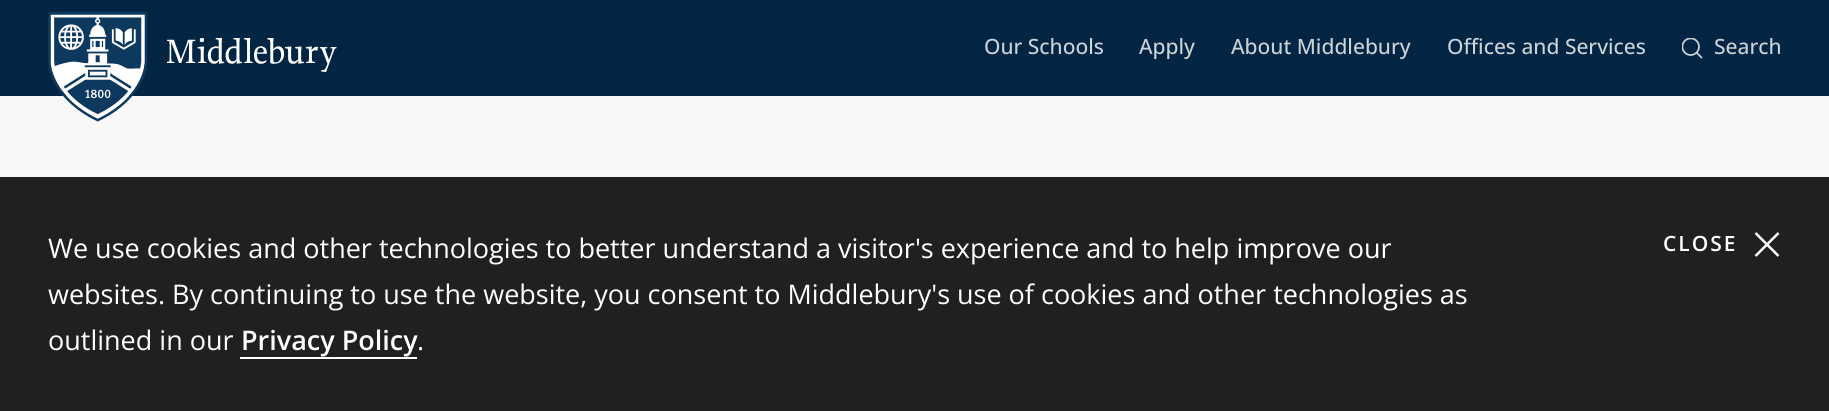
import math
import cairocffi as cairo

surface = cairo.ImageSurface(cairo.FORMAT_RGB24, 1829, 411)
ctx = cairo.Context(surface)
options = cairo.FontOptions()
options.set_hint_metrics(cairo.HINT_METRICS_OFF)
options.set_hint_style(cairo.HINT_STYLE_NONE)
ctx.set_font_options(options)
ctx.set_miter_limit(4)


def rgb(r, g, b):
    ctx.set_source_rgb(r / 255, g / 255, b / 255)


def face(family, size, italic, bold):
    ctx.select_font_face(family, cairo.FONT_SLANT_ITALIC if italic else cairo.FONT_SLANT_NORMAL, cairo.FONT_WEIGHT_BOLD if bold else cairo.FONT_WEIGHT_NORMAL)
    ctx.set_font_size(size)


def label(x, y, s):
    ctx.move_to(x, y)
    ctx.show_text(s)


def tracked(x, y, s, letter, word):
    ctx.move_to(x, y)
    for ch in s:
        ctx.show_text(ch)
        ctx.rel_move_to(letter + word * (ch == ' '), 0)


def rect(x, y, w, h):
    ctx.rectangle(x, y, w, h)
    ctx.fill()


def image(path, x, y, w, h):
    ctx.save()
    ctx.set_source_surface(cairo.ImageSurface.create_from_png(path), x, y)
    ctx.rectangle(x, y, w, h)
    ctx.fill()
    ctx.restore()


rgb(2, 37, 67)
ctx.paint()
rgb(248, 248, 248)
rect(0, 96, 1829, 81)
image('image0.png', 48, 12, 100, 110)
image('image1.png', 167, 38, 170, 34)
face('Open Sans Medium', 21, 0, 0)
rgb(204, 211, 217)
label(984, 54, 'Our Schools')
label(1139, 54, 'Apply')
label(1231, 54, 'About Middlebury')
label(1447, 54, 'Offices and Services')
image('image2.png', 1682, 38, 21, 21)
label(1714, 54, 'Search')
rgb(32, 32, 32)
rect(0, 177, 1829, 234)
face('Open Sans', 27, 0, 0)
rgb(255, 255, 255)
label(48, 258, 'We use cookies and other technologies to better understand a visitor\'s experience and to help improve our')
label(48, 304, 'websites. By continuing to use the website, you consent to Middlebury\'s use of cookies and other technologies as')
label(48, 350, 'outlined in our')
face('Open Sans SemiBold', 27, 0, 0)
label(241, 350, 'Privacy Policy')
rect(240, 357, 177, 2)
face('Open Sans', 27, 0, 0)
label(417, 350, '.')
face('Open Sans SemiBold', 21, 0, 0)
tracked(1663, 251, 'CLOSE', 2, 0)
image('image3.png', 1754, 232, 26, 25)
surface.write_to_png('render.png')
